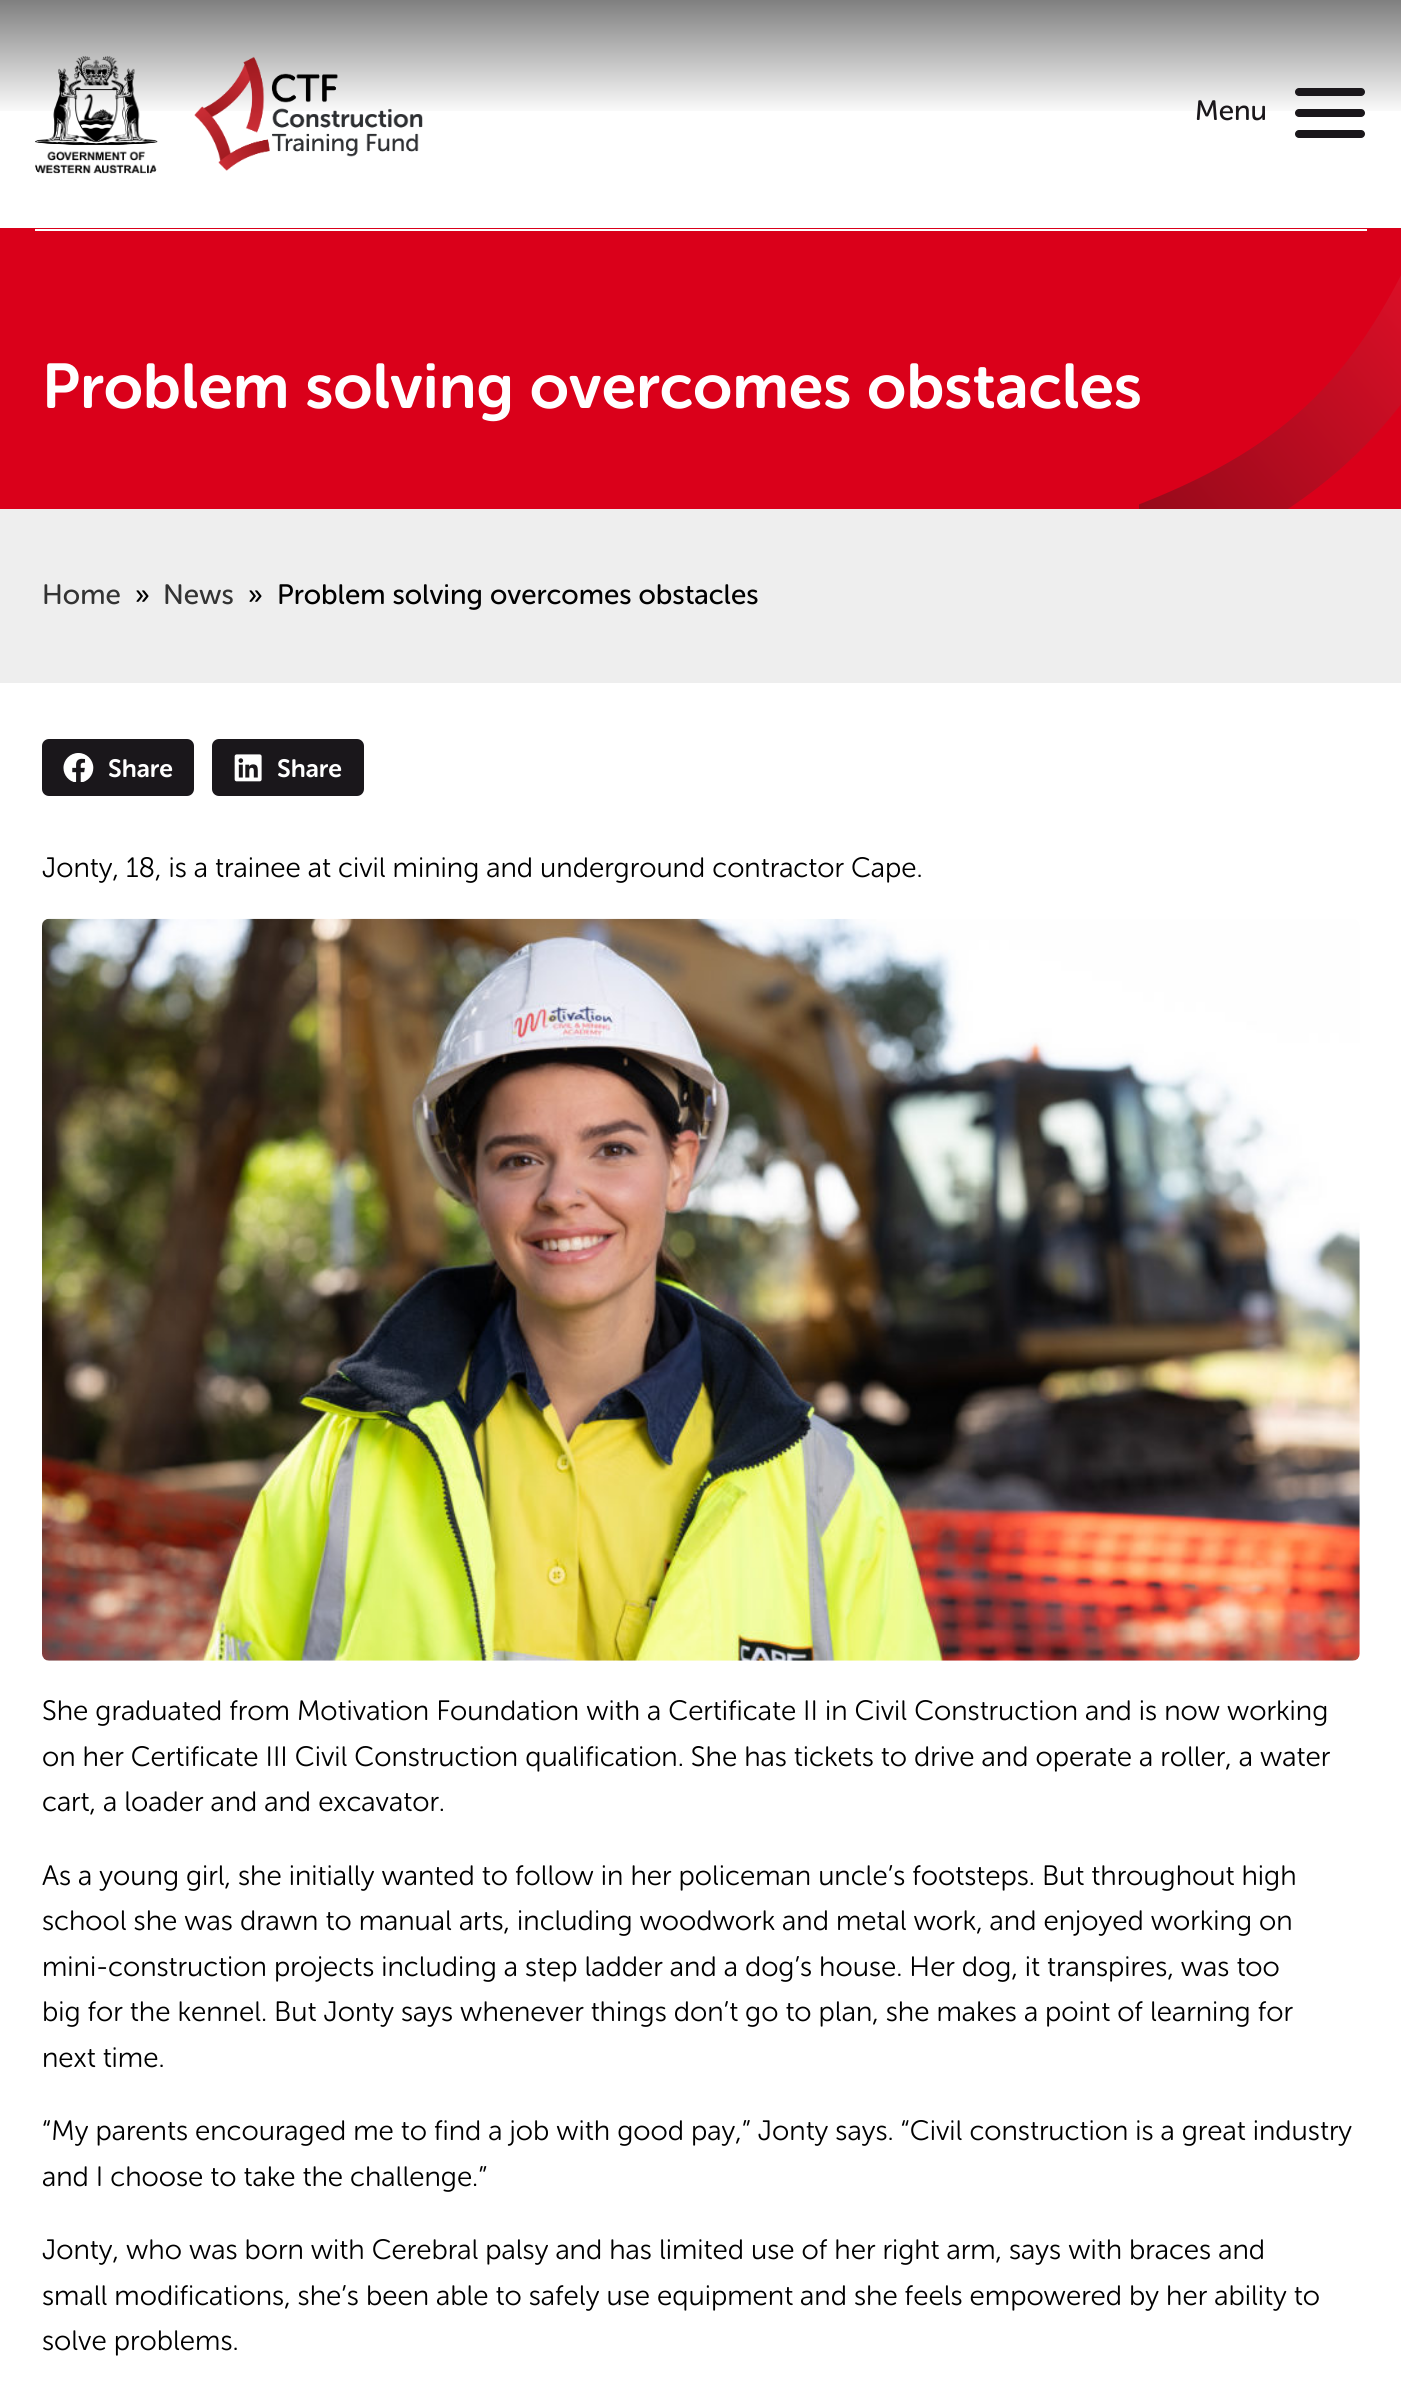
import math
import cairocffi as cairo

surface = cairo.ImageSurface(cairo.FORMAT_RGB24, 1401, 2388)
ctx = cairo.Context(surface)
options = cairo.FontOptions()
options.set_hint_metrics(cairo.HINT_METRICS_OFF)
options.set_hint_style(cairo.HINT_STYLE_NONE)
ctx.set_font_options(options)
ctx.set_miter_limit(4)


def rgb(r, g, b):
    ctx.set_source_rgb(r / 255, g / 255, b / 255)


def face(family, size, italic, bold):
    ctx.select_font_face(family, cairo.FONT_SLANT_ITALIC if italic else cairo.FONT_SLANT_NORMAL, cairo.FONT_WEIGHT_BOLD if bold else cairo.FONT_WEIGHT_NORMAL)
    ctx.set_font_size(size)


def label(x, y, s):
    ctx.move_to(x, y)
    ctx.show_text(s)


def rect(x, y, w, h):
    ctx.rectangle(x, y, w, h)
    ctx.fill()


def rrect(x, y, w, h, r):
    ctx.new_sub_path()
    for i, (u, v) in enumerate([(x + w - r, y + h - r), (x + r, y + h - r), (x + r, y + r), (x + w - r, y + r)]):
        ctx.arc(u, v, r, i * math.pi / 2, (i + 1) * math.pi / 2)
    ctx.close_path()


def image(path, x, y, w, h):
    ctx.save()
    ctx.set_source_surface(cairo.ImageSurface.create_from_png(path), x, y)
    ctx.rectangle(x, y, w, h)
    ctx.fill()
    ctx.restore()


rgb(255, 255, 255)
ctx.paint()
gradient = cairo.LinearGradient(701, 0, 701, 231)
gradient.add_color_stop_rgba(0, 0, 0, 0, 0.5)
gradient.add_color_stop_rgba(0.5, 0, 0, 0, 0)
ctx.set_source(gradient)
rect(0, 0, 1401, 111)
rgb(218, 0, 26)
rect(0, 228, 1401, 281)
rgb(255, 255, 255)
rect(35, 229, 1332, 2)
image('image0.png', 35, 56, 123, 118)
image('image1.png', 194, 56, 229, 115)
face('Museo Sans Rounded', 28, 0, 0)
rgb(26, 23, 27)
label(1195, 120, 'Menu')
rrect(1295, 88, 70, 8, 4)
ctx.fill()
rrect(1295, 109, 70, 8, 4)
ctx.fill()
rrect(1295, 130, 70, 8, 4)
ctx.fill()
ctx.save()
ctx.rectangle(1139, 247, 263, 262)
ctx.clip()
gradient = cairo.LinearGradient(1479, 272, 1135, 561)
gradient.add_color_stop_rgba(0, 0.902, 0.063, 0.161, 1)
gradient.add_color_stop_rgba(1, 0.565, 0.035, 0.098, 1)
ctx.set_source(gradient)
ctx.new_path()
ctx.move_to(1127, 509)
ctx.curve_to(1284, 450, 1352, 380, 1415, 247)
ctx.line_to(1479, 272)
ctx.curve_to(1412, 417, 1329, 511, 1148, 578)
ctx.close_path()
ctx.fill()
ctx.restore()
face('Museo Sans Rounded SemiBold', 63, 0, 0)
rgb(255, 255, 255)
label(42, 408, 'Problem solving overcomes obstacles')
rgb(238, 238, 238)
rect(0, 509, 1401, 174)
face('Museo Sans Rounded', 28, 0, 0)
rgb(51, 51, 51)
label(42, 604, 'Home')
rgb(0, 0, 0)
label(135, 604, '»')
rgb(51, 51, 51)
label(163, 604, 'News')
rgb(0, 0, 0)
label(248, 604, '»')
label(277, 604, 'Problem solving overcomes obstacles')
rgb(26, 23, 27)
rrect(42, 739, 152, 57, 7)
ctx.fill()
image('image2.png', 63, 753, 31, 29)
face('Museo Sans Rounded SemiBold', 25, 0, 0)
rgb(255, 255, 255)
label(108, 777, 'Share')
rgb(26, 23, 27)
rrect(212, 739, 152, 57, 7)
ctx.fill()
image('image3.png', 234, 754, 28, 28)
rgb(255, 255, 255)
label(277, 777, 'Share')
face('Museo Sans Rounded Light', 28, 0, 0)
rgb(0, 0, 0)
label(42, 877, 'Jonty, 18, is a trainee at civil mining and underground contractor Cape.')
image('image4.png', 42, 918, 1318, 743)
label(42, 1720, 'She graduated from Motivation Foundation with a Certificate II in Civil Construction and is now working')
label(42, 1766, 'on her Certificate III Civil Construction qualification. She has tickets to drive and operate a roller, a water')
label(42, 1811, 'cart, a loader and and excavator.')
label(42, 1885, 'As a young girl, she initially wanted to follow in her policeman uncle’s footsteps. But throughout high')
label(42, 1930, 'school she was drawn to manual arts, including woodwork and metal work, and enjoyed working on')
label(42, 1976, 'mini-construction projects including a step ladder and a dog’s house. Her dog, it transpires, was too')
label(42, 2021, 'big for the kennel. But Jonty says whenever things don’t go to plan, she makes a point of learning for')
label(42, 2067, 'next time.')
label(42, 2140, '“My parents encouraged me to find a job with good pay,” Jonty says. “Civil construction is a great industry')
label(42, 2186, 'and I choose to take the challenge.”')
label(42, 2259, 'Jonty, who was born with Cerebral palsy and has limited use of her right arm, says with braces and')
label(42, 2305, 'small modifications, she’s been able to safely use equipment and she feels empowered by her ability to')
label(42, 2350, 'solve problems.')
surface.write_to_png('render.png')
